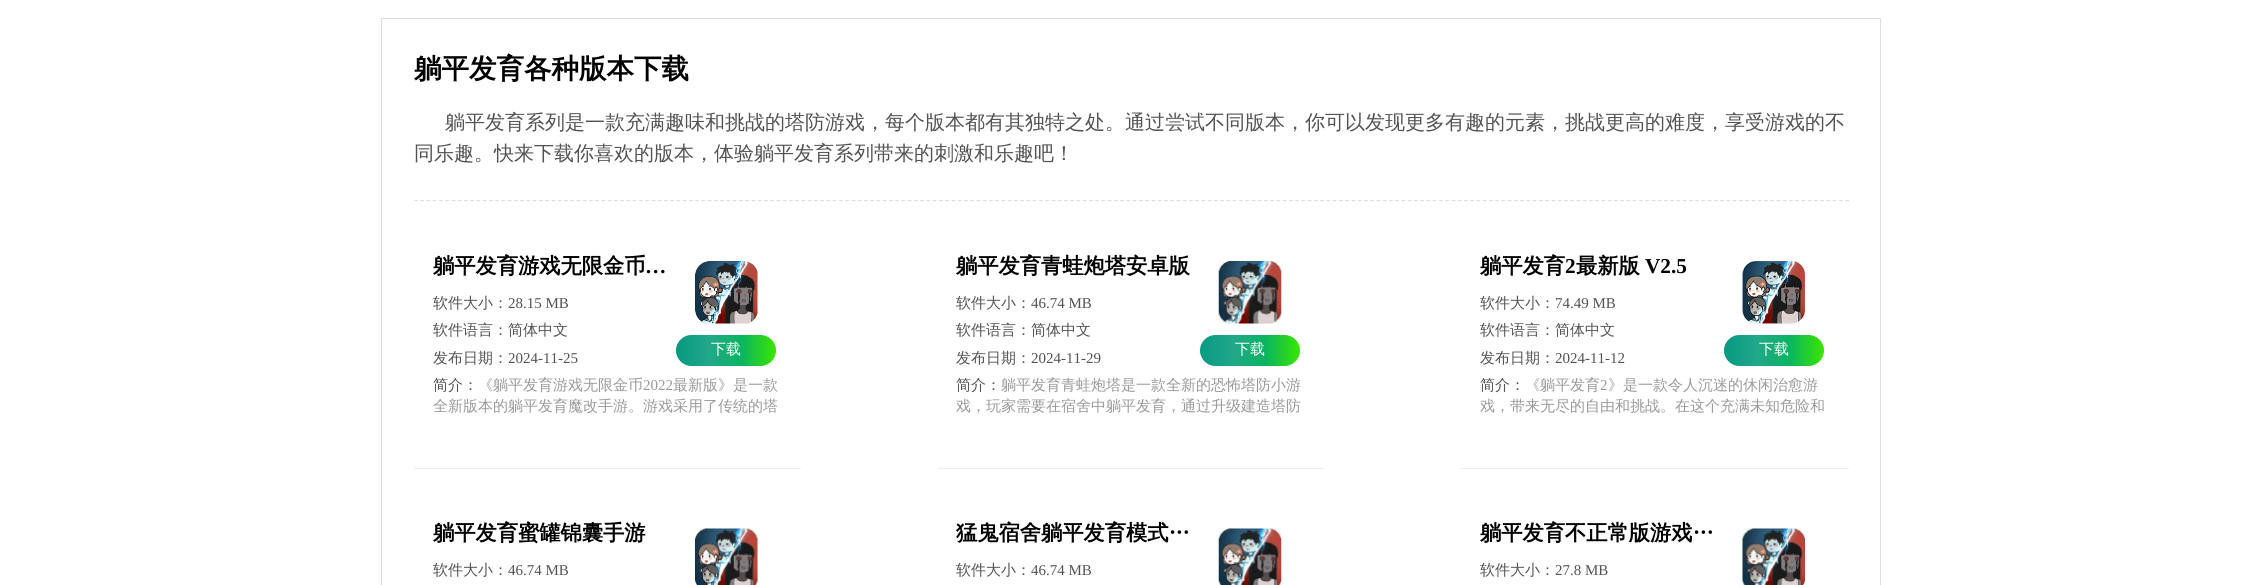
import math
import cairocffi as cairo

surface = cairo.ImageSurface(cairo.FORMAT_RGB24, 2262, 585)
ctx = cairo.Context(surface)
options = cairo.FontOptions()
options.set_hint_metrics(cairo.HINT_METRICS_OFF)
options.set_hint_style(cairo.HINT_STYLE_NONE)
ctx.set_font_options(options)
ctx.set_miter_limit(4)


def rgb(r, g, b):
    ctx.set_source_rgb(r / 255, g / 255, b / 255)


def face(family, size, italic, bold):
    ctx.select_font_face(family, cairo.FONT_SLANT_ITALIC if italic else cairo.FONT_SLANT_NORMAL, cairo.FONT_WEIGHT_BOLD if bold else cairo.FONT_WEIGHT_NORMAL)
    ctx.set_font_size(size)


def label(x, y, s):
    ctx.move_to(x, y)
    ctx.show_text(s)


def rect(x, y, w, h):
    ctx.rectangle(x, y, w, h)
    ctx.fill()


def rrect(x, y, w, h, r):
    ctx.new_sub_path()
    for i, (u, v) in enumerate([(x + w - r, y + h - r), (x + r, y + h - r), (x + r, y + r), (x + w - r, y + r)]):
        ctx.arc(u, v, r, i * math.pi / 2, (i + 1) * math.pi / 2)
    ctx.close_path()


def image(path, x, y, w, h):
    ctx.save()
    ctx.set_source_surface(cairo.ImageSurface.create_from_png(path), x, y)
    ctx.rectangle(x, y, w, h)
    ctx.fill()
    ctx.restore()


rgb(255, 255, 255)
ctx.paint()
ctx.rectangle(381.5, 18.5, 1499, 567)
rgb(221, 221, 221)
ctx.set_line_width(1)
ctx.stroke()
ctx.new_path()
ctx.move_to(414, 200.5)
ctx.line_to(1849, 200.5)
ctx.set_line_width(1.2)
ctx.set_dash([3.75, 2.5])
ctx.stroke()
face('WenQuanYi Zen Hei', 27.5, 0, 1)
rgb(0, 0, 0)
label(414, 78, '躺平发育各种版本下载')
face('WenQuanYi Zen Hei Medium', 20, 0, 0)
rgb(83, 83, 83)
label(445, 129, '躺平发育系列是一款充满趣味和挑战的塔防游戏，每个版本都有其独特之处。通过尝试不同版本，你可以发现更多有趣的元素，挑战更高的难度，享受游戏的不')
label(414, 160, '同乐趣。快来下载你喜欢的版本，体验躺平发育系列带来的刺激和乐趣吧！')
face('WenQuanYi Zen Hei', 21.25, 0, 1)
rgb(0, 0, 0)
label(433, 273, '躺平发育游戏无限金币')
face('Liberation Serif', 21.25, 0, 1)
label(645, 273, '…')
face('WenQuanYi Zen Hei Medium', 15, 0, 0)
rgb(83, 83, 83)
label(433, 308, '软件大小：')
face('Liberation Serif', 15, 0, 0)
label(508, 308, '28.15 MB')
face('WenQuanYi Zen Hei Medium', 15, 0, 0)
label(433, 335, '软件语言：简体中文')
label(433, 363, '发布日期：')
face('Liberation Serif', 15, 0, 0)
label(508, 363, '2024-11-25')
image('image0.png', 695, 261, 63, 63)
gradient = cairo.LinearGradient(676, 351, 776, 351)
gradient.add_color_stop_rgba(0, 0.024, 0.604, 0.51, 1)
gradient.add_color_stop_rgba(0.33, 0.133, 0.655, 0.541, 1)
gradient.add_color_stop_rgba(0.66, 0.039, 0.71, 0.373, 1)
gradient.add_color_stop_rgba(1, 0.227, 0.902, 0, 1)
ctx.set_source(gradient)
rrect(676, 335, 100, 31, 15.5)
ctx.fill()
face('WenQuanYi Zen Hei Medium', 15, 0, 0)
rgb(255, 255, 255)
label(711, 354, '下载')
rgb(83, 83, 83)
label(433, 390, '简介：')
rgb(153, 153, 153)
label(478, 390, '《躺平发育游戏无限金币')
face('Liberation Serif', 15, 0, 0)
label(643, 390, '2022')
face('WenQuanYi Zen Hei Medium', 15, 0, 0)
label(673, 390, '最新版》是一款')
label(433, 411, '全新版本的躺平发育魔改手游。游戏采用了传统的塔')
face('WenQuanYi Zen Hei', 21.25, 0, 1)
rgb(0, 0, 0)
label(956, 273, '躺平发育青蛙炮塔安卓版')
face('WenQuanYi Zen Hei Medium', 15, 0, 0)
rgb(83, 83, 83)
label(956, 308, '软件大小：')
face('Liberation Serif', 15, 0, 0)
label(1031, 308, '46.74 MB')
face('WenQuanYi Zen Hei Medium', 15, 0, 0)
label(956, 335, '软件语言：简体中文')
label(956, 363, '发布日期：')
face('Liberation Serif', 15, 0, 0)
label(1031, 363, '2024-11-29')
image('image1.png', 1218, 261, 64, 63)
gradient = cairo.LinearGradient(1200, 351, 1300, 351)
gradient.add_color_stop_rgba(0, 0.024, 0.604, 0.51, 1)
gradient.add_color_stop_rgba(0.33, 0.133, 0.655, 0.541, 1)
gradient.add_color_stop_rgba(0.66, 0.039, 0.71, 0.373, 1)
gradient.add_color_stop_rgba(1, 0.227, 0.902, 0, 1)
ctx.set_source(gradient)
rrect(1200, 335, 100, 31, 15.5)
ctx.fill()
face('WenQuanYi Zen Hei Medium', 15, 0, 0)
rgb(255, 255, 255)
label(1235, 354, '下载')
rgb(83, 83, 83)
label(956, 390, '简介：')
rgb(153, 153, 153)
label(1001, 390, '躺平发育青蛙炮塔是一款全新的恐怖塔防小游')
label(956, 411, '戏，玩家需要在宿舍中躺平发育，通过升级建造塔防')
face('WenQuanYi Zen Hei', 21.25, 0, 1)
rgb(0, 0, 0)
label(1480, 273, '躺平发育')
face('Liberation Serif', 21.25, 0, 1)
label(1565, 273, '2')
face('WenQuanYi Zen Hei', 21.25, 0, 1)
label(1576, 273, '最新版')
face('Liberation Serif', 21.25, 0, 1)
label(1645, 273, 'V2.5')
face('WenQuanYi Zen Hei Medium', 15, 0, 0)
rgb(83, 83, 83)
label(1480, 308, '软件大小：')
face('Liberation Serif', 15, 0, 0)
label(1555, 308, '74.49 MB')
face('WenQuanYi Zen Hei Medium', 15, 0, 0)
label(1480, 335, '软件语言：简体中文')
label(1480, 363, '发布日期：')
face('Liberation Serif', 15, 0, 0)
label(1555, 363, '2024-11-12')
image('image2.png', 1742, 261, 63, 63)
gradient = cairo.LinearGradient(1724, 351, 1824, 351)
gradient.add_color_stop_rgba(0, 0.024, 0.604, 0.51, 1)
gradient.add_color_stop_rgba(0.33, 0.133, 0.655, 0.541, 1)
gradient.add_color_stop_rgba(0.66, 0.039, 0.71, 0.373, 1)
gradient.add_color_stop_rgba(1, 0.227, 0.902, 0, 1)
ctx.set_source(gradient)
rrect(1724, 335, 100, 31, 15.5)
ctx.fill()
face('WenQuanYi Zen Hei Medium', 15, 0, 0)
rgb(255, 255, 255)
label(1759, 354, '下载')
rgb(83, 83, 83)
label(1480, 390, '简介：')
rgb(153, 153, 153)
label(1525, 390, '《躺平发育')
face('Liberation Serif', 15, 0, 0)
label(1600, 390, '2')
face('WenQuanYi Zen Hei Medium', 15, 0, 0)
label(1608, 390, '》是一款令人沉迷的休闲治愈游')
label(1480, 411, '戏，带来无尽的自由和挑战。在这个充满未知危险和')
rgb(238, 238, 238)
rect(414, 468, 387, 1)
face('WenQuanYi Zen Hei', 21.25, 0, 1)
rgb(0, 0, 0)
label(433, 540, '躺平发育蜜罐锦囊手游')
face('WenQuanYi Zen Hei Medium', 15, 0, 0)
rgb(83, 83, 83)
label(433, 575, '软件大小：')
face('Liberation Serif', 15, 0, 0)
label(508, 575, '46.74 MB')
image('image3.png', 695, 528, 63, 57)
rgb(238, 238, 238)
rect(938, 468, 387, 1)
face('WenQuanYi Zen Hei', 21.25, 0, 1)
rgb(0, 0, 0)
label(956, 540, '猛鬼宿舍躺平发育模式…')
face('WenQuanYi Zen Hei Medium', 15, 0, 0)
rgb(83, 83, 83)
label(956, 575, '软件大小：')
face('Liberation Serif', 15, 0, 0)
label(1031, 575, '46.74 MB')
image('image4.png', 1218, 528, 64, 57)
rgb(238, 238, 238)
rect(1461, 468, 388, 1)
face('WenQuanYi Zen Hei', 21.25, 0, 1)
rgb(0, 0, 0)
label(1480, 540, '躺平发育不正常版游戏…')
face('WenQuanYi Zen Hei Medium', 15, 0, 0)
rgb(83, 83, 83)
label(1480, 575, '软件大小：')
face('Liberation Serif', 15, 0, 0)
label(1555, 575, '27.8 MB')
image('image5.png', 1742, 528, 63, 57)
surface.write_to_png('render.png')
